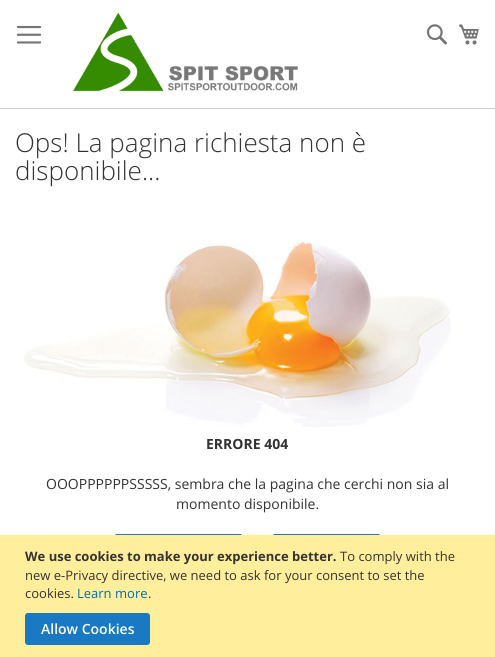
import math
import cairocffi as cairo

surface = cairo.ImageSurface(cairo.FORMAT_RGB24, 495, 657)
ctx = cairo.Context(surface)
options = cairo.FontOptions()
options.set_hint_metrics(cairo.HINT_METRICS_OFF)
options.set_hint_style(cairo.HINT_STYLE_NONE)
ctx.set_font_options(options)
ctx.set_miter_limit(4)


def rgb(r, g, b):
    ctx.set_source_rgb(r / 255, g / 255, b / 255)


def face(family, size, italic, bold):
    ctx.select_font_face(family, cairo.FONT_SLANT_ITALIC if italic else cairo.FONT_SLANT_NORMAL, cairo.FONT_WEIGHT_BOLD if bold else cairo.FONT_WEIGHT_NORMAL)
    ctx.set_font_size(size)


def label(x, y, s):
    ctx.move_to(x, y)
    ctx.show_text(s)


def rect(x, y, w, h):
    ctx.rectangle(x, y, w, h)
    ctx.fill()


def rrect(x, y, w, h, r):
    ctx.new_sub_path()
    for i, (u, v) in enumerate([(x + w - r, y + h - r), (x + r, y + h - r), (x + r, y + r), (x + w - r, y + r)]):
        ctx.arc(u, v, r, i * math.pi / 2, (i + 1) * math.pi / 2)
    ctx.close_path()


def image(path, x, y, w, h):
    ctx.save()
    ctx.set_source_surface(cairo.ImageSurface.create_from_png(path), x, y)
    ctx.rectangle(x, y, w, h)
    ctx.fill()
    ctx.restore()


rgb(255, 255, 255)
ctx.paint()
rgb(204, 204, 204)
rect(0, 108, 495, 1)
image('image0.png', 16, 25, 26, 19)
image('image1.png', 73, 12, 225, 80)
image('image2.png', 426, 24, 21, 21)
image('image3.png', 459, 24, 20, 21)
face('Open Sans Light', 26, 0, 0)
rgb(51, 51, 51)
label(15, 152, 'Ops! La pagina richiesta non è')
label(15, 180, 'disponibile...')
image('image4.png', 24, 239, 427, 188)
face('Open Sans', 14, 0, 1)
label(206, 449, 'ERRORE 404')
face('Open Sans', 14, 0, 0)
label(46, 489, 'OOOPPPPPPSSSSS, sembra che la pagina che cerchi non sia al')
label(176, 509, 'momento disponibile.')
rrect(114.5, 534.5, 128, 35, 2.5)
rgb(25, 121, 195)
ctx.set_line_width(1)
ctx.stroke()
rrect(272.5, 534.5, 108, 35, 2.5)
ctx.stroke()
rgb(255, 238, 156)
rect(0, 535, 495, 122)
face('Open Sans', 13, 0, 1)
rgb(51, 51, 51)
label(25, 561, 'We use cookies to make your experience better.')
face('Open Sans', 13, 0, 0)
label(340, 561, 'To comply with the')
label(25, 580, 'new e-Privacy directive, we need to ask for your consent to set the')
label(25, 598, 'cookies.')
rgb(0, 107, 180)
label(77, 598, 'Learn more')
rgb(51, 51, 51)
label(148, 598, '.')
rgb(25, 121, 195)
rrect(25.5, 613.5, 124, 31, 2.5)
ctx.fill_preserve()
ctx.stroke()
face('Open Sans SemiBold', 14, 0, 0)
rgb(255, 255, 255)
label(41, 634, 'Allow Cookies')
surface.write_to_png('render.png')
